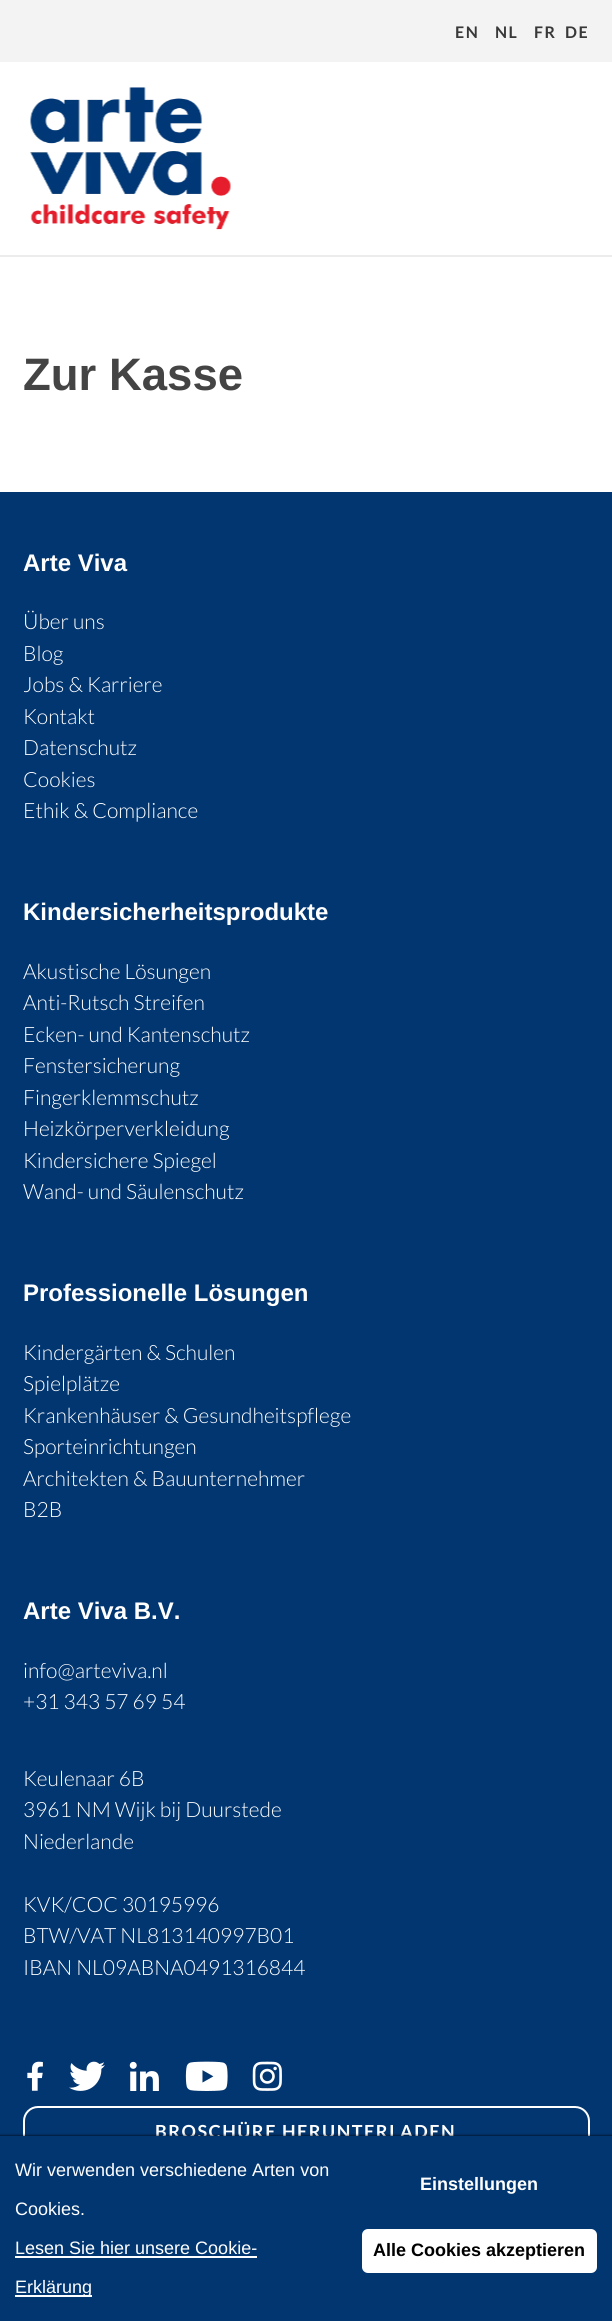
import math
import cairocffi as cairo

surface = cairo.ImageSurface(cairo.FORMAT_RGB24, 612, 2321)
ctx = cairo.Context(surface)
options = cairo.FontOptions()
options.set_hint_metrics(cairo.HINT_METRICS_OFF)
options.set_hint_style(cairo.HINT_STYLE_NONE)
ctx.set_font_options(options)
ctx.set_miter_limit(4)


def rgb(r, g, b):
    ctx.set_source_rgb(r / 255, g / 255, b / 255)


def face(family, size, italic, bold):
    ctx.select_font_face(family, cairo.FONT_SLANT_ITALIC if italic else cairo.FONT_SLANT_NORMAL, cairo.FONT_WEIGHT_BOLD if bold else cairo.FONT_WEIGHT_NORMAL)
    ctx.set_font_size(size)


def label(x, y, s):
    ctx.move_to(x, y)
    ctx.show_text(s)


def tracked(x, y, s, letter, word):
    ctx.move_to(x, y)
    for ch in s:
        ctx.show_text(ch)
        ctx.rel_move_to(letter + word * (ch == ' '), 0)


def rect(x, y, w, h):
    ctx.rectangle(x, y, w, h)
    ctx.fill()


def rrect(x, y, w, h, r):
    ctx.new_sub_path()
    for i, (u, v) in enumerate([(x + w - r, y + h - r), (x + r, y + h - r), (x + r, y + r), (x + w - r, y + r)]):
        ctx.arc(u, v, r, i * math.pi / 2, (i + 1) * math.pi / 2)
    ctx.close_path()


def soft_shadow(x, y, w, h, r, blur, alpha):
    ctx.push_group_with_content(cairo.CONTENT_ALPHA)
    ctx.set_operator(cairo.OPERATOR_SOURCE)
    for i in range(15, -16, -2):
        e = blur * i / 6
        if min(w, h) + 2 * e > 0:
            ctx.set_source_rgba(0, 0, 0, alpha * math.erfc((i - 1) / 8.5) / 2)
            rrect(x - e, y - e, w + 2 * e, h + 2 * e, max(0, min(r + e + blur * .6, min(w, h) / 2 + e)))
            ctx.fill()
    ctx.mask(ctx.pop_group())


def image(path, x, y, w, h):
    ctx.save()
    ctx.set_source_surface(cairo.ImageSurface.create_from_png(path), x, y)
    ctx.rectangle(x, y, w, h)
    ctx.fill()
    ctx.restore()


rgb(255, 255, 255)
ctx.paint()
rgb(243, 243, 243)
rect(0, 0, 612, 62)
face('Lato', 16, 0, 1)
rgb(56, 56, 56)
tracked(455, 38, 'EN', 1.5, 0)
tracked(495, 38, 'NL', 1.5, 0)
tracked(534, 38, 'FR', 1.5, 0)
tracked(565, 38, 'DE', 1.5, 0)
rgb(236, 236, 236)
rect(0, 255, 612, 2)
image('image0.png', 30, 87, 201, 143)
face('Liberation Sans', 45.5, 0, 1)
rgb(68, 68, 68)
label(23, 390, 'Zur Kasse')
rgb(2, 54, 113)
rect(0, 492, 612, 1644)
face('Liberation Sans', 24, 0, 1)
rgb(255, 255, 255)
label(23, 571, 'Arte Viva')
face('Lato Light', 21, 0, 0)
label(23, 629, 'Über uns')
label(23, 661, 'Blog')
label(23, 692, 'Jobs & Karriere')
label(23, 724, 'Kontakt')
label(23, 755, 'Datenschutz')
label(23, 787, 'Cookies')
label(23, 818, 'Ethik & Compliance')
face('Liberation Sans', 24, 0, 1)
label(23, 920, 'Kindersicherheitsprodukte')
face('Lato Light', 21, 0, 0)
label(23, 979, 'Akustische Lösungen')
label(23, 1010, 'Anti-Rutsch Streifen')
label(23, 1042, 'Ecken- und Kantenschutz')
label(23, 1073, 'Fenstersicherung')
label(23, 1105, 'Fingerklemmschutz')
label(23, 1136, 'Heizkörperverkleidung')
label(23, 1168, 'Kindersichere Spiegel')
label(23, 1199, 'Wand- und Säulenschutz')
face('Liberation Sans', 24, 0, 1)
label(23, 1301, 'Professionelle Lösungen')
face('Lato Light', 21, 0, 0)
label(23, 1360, 'Kindergärten & Schulen')
label(23, 1391, 'Spielplätze')
label(23, 1423, 'Krankenhäuser & Gesundheitspflege')
label(23, 1454, 'Sporteinrichtungen')
label(23, 1486, 'Architekten & Bauunternehmer')
label(23, 1517, 'B2B')
face('Liberation Sans', 24, 0, 1)
label(23, 1619, 'Arte Viva B.V.')
face('Lato Light', 21, 0, 0)
label(23, 1678, 'info@arteviva.nl')
label(23, 1709, '+31 343 57 69 54')
label(23, 1786, 'Keulenaar 6B')
label(23, 1817, '3961 NM Wijk bij Duurstede')
label(23, 1849, 'Niederlande')
label(23, 1912, 'KVK/COC 30195996')
label(23, 1943, 'BTW/VAT NL813140997B01')
label(23, 1975, 'IBAN NL09ABNA0491316844')
image('image1.png', 27, 2061, 16, 30)
image('image2.png', 69, 2061, 36, 30)
image('image3.png', 129, 2061, 30, 30)
image('image4.png', 185, 2061, 43, 30)
image('image5.png', 252, 2061, 30, 30)
rrect(24, 2107, 565, 49, 14)
ctx.stroke()
face('Lato', 18, 0, 1)
tracked(155, 2138, 'BROSCHÜRE HERUNTERLADEN', 1.5, 0)
rgb(0, 0, 0)
soft_shadow(0, 2136, 612, 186, 0, 1.5, 1)
rgb(2, 54, 113)
rect(0, 2136, 612, 185)
face('Liberation Sans', 18, 0, 0)
rgb(255, 255, 255)
label(15, 2176, 'Wir verwenden verschiedene Arten von')
label(15, 2215, 'Cookies.')
label(15, 2254, 'Lesen Sie hier unsere Cookie-')
rect(15, 2256, 242, 2)
rect(15, 2295, 77, 2)
label(15, 2293, 'Erklärung')
face('Liberation Sans', 18, 0, 1)
label(420, 2190, 'Einstellungen')
rrect(362, 2229, 235, 44, 6)
ctx.fill()
rgb(0, 0, 0)
label(373, 2256, 'Alle Cookies akzeptieren')
surface.write_to_png('render.png')
